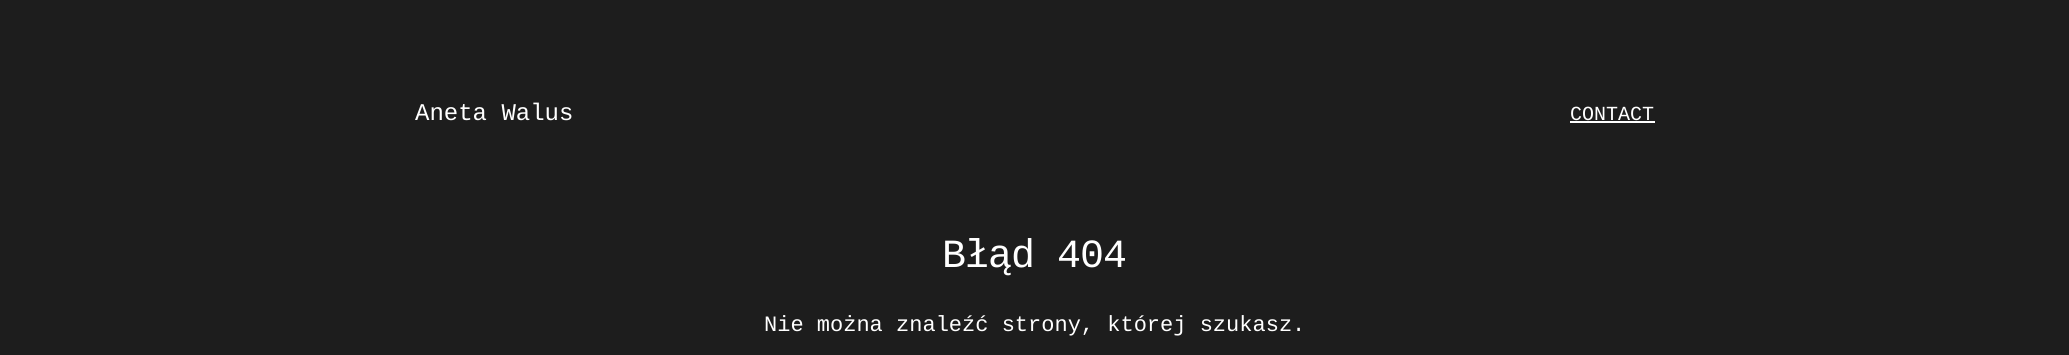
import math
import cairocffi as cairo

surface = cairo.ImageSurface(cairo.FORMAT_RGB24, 2069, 355)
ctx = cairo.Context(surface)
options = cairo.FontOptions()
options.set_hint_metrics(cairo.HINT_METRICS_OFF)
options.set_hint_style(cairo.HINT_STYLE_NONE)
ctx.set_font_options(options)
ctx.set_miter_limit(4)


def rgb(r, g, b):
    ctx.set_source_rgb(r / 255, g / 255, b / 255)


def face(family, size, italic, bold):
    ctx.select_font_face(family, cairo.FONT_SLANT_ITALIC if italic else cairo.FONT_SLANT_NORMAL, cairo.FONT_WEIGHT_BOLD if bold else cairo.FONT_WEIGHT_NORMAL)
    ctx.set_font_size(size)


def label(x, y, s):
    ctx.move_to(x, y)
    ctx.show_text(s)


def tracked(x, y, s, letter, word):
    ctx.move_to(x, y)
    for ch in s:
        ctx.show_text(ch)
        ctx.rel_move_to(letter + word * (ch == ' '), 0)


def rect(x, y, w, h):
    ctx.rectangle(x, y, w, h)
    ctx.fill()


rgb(29, 29, 29)
ctx.paint()
face('Liberation Mono', 24, 0, 0)
rgb(255, 255, 255)
label(415, 120, 'Aneta Walus')
face('Liberation Mono', 20, 0, 0)
label(1570, 120, 'CONTACT')
rect(1570, 121, 85, 2)
face('Liberation Mono', 40, 0, 0)
tracked(942, 267, 'Błąd 404', -1, 0)
face('Liberation Mono', 22, 0, 0)
label(764, 331, 'Nie można znaleźć strony, której szukasz.')
surface.write_to_png('render.png')
